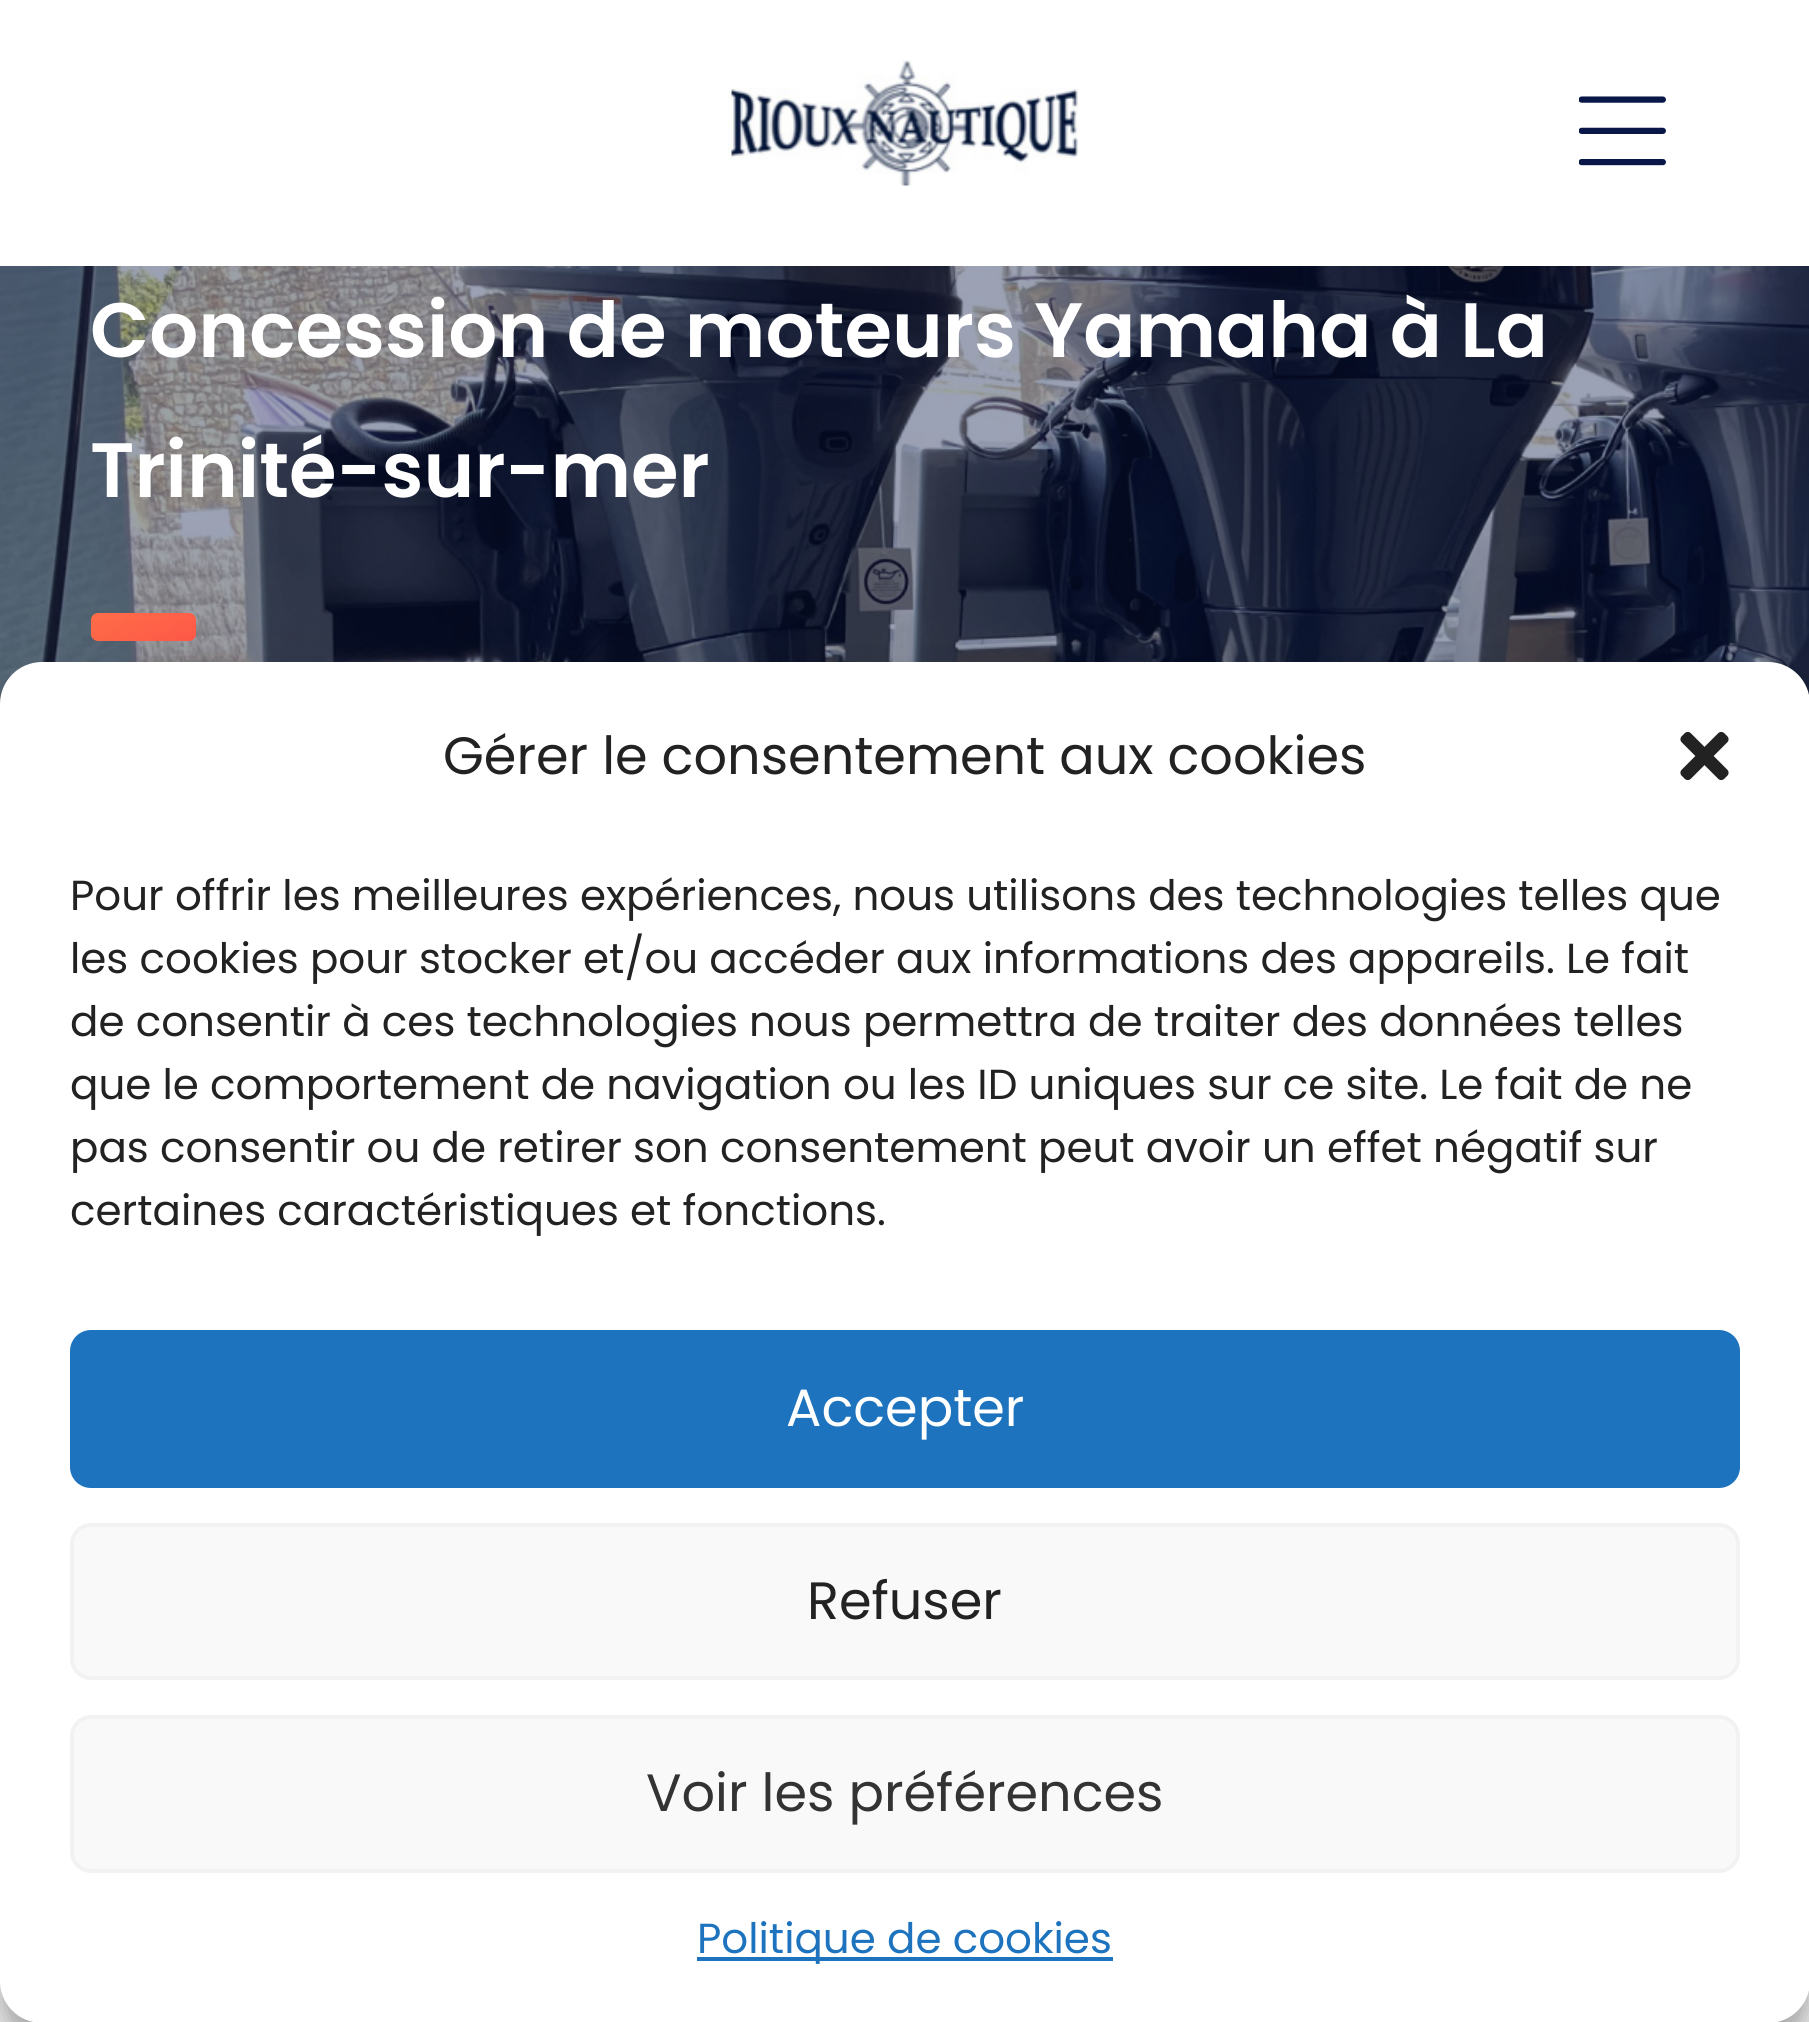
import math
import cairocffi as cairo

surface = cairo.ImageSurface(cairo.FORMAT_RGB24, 1809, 2022)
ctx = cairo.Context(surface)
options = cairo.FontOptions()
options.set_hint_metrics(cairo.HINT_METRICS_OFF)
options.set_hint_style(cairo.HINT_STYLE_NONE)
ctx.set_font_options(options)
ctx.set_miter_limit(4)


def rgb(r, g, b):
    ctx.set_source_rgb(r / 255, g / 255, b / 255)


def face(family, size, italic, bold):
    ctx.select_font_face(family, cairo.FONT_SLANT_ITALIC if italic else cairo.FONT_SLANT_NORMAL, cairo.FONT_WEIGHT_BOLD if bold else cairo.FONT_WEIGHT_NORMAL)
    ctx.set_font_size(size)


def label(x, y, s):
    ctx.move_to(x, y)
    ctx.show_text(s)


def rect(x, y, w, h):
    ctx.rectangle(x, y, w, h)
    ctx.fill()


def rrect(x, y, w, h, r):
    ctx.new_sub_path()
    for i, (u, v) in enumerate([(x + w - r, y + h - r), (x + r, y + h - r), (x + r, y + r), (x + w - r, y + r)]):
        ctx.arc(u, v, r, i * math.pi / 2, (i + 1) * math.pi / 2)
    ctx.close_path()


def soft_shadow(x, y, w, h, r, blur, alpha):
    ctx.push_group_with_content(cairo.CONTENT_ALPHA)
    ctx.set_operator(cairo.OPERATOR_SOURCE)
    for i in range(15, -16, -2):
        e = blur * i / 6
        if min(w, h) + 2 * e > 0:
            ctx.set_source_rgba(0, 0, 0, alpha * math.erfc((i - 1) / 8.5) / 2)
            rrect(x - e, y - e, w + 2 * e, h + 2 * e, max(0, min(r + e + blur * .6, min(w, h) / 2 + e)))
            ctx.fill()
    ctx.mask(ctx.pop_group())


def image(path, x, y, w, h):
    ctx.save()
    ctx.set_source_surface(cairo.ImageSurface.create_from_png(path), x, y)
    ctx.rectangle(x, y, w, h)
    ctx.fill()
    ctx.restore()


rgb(255, 255, 255)
ctx.paint()
image('image0.png', 728, 60, 350, 126)
image('image1.png', 1579, 96, 87, 70)
image('image2.png', 0, 266, 1809, 438)
face('Poppins SemiBold', 77, 0, 0)
rgb(255, 255, 255)
label(90, 357, 'Concession de moteurs Yamaha à La')
label(90, 497, 'Trinité-sur-mer')
gradient = cairo.LinearGradient(123, 593, 164, 660)
gradient.add_color_stop_rgba(0, 1, 0.427, 0.282, 1)
gradient.add_color_stop_rgba(1, 1, 0.349, 0.282, 1)
ctx.set_source(gradient)
rrect(91, 613, 105, 28, 7)
ctx.fill()
rgb(0, 0, 0)
soft_shadow(0, 683, 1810, 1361, 42, 10.5, 0.23)
soft_shadow(0, 697, 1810, 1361, 42, 35, 0.19)
rgb(255, 255, 255)
rrect(0, 662, 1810, 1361, 42)
ctx.fill()
face('Poppins', 52.5, 0, 0)
rgb(34, 34, 34)
label(443, 774, 'Gérer le consentement aux cookies')
image('image3.png', 1680, 731, 49, 50)
face('Poppins', 42, 0, 0)
label(70, 910, 'Pour offrir les meilleures expériences, nous utilisons des technologies telles que')
label(70, 973, 'les cookies pour stocker et/ou accéder aux informations des appareils. Le fait')
label(70, 1036, 'de consentir à ces technologies nous permettra de traiter des données telles')
label(70, 1099, 'que le comportement de navigation ou les ID uniques sur ce site. Le fait de ne')
label(70, 1162, 'pas consentir ou de retirer son consentement peut avoir un effet négatif sur')
label(70, 1225, 'certaines caractéristiques et fonctions.')
rgb(30, 115, 190)
rrect(72, 1332, 1666, 154, 19)
ctx.fill_preserve()
ctx.set_line_width(4)
ctx.stroke()
face('Poppins', 52.5, 0, 0)
rgb(255, 255, 255)
label(786, 1426, 'Accepter')
rgb(249, 249, 249)
rrect(72, 1525, 1666, 153, 19)
ctx.fill_preserve()
rgb(242, 242, 242)
ctx.stroke()
rgb(34, 34, 34)
label(807, 1619, 'Refuser')
rgb(249, 249, 249)
rrect(72, 1717, 1666, 154, 19)
ctx.fill_preserve()
rgb(242, 242, 242)
ctx.stroke()
rgb(51, 51, 51)
label(646, 1811, 'Voir les préférences')
rgb(30, 115, 190)
rect(697, 1957, 416, 4)
face('Poppins', 42, 0, 0)
label(697, 1953, 'Politique de cookies')
surface.write_to_png('render.png')
